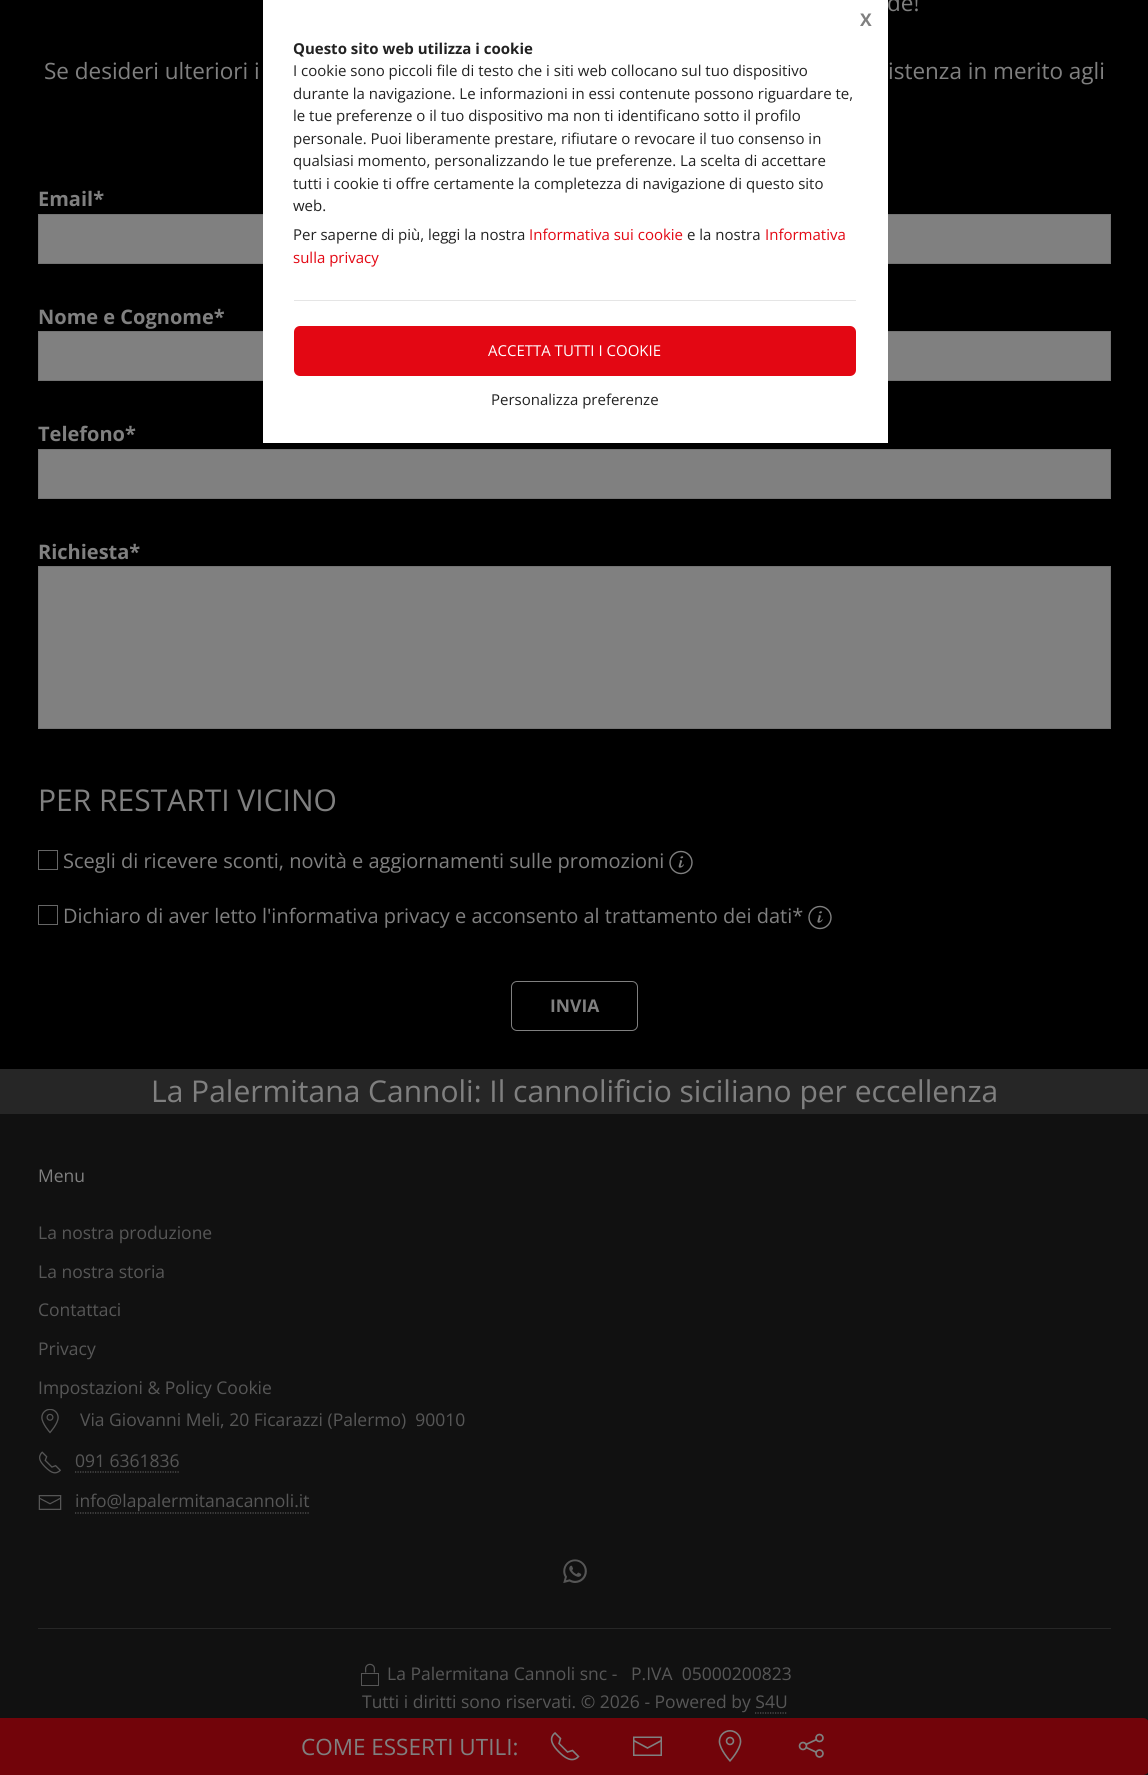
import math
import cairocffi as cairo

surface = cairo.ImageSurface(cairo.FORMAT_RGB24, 1148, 1775)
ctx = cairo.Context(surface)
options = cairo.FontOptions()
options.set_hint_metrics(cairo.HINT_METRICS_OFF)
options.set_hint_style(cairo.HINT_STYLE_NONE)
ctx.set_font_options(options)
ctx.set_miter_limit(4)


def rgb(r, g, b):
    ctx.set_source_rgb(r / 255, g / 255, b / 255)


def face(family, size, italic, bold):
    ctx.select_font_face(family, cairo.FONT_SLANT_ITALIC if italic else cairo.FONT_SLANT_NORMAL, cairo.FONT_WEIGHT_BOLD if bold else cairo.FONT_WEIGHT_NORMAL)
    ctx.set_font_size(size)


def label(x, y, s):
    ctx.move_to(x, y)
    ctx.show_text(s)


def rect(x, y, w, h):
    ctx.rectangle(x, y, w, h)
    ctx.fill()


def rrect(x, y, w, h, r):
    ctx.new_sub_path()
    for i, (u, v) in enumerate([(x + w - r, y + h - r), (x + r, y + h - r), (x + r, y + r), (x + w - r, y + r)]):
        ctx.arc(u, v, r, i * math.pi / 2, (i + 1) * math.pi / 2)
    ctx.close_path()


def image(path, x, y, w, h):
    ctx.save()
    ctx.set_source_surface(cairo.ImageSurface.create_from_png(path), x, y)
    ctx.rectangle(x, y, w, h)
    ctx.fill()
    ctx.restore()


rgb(0, 0, 0)
ctx.paint()
face('Open Sans', 22.5, 0, 0)
rgb(128, 128, 128)
label(887, 11, 'de!')
label(44, 79, 'Se desideri ulteriori i')
label(888, 79, 'istenza in merito agli')
face('Open Sans', 20, 0, 1)
label(38, 206, 'Email*')
ctx.rectangle(38.5, 214.5, 1072, 49)
ctx.fill_preserve()
rgb(115, 115, 115)
ctx.set_line_width(1)
ctx.stroke()
rgb(128, 128, 128)
label(38, 324, 'Nome e Cognome*')
ctx.rectangle(38.5, 331.5, 1072, 49)
ctx.fill_preserve()
rgb(115, 115, 115)
ctx.stroke()
rgb(128, 128, 128)
label(38, 441, 'Telefono*')
ctx.rectangle(38.5, 449.5, 1072, 49)
ctx.fill_preserve()
rgb(115, 115, 115)
ctx.stroke()
rgb(128, 128, 128)
label(38, 559, 'Richiesta*')
ctx.rectangle(38.5, 566.5, 1072, 162)
ctx.fill_preserve()
rgb(115, 115, 115)
ctx.stroke()
face('Open Sans', 30, 0, 0)
rgb(128, 128, 128)
label(38, 811, 'PER RESTARTI VICINO')
ctx.rectangle(38.5, 850.5, 19, 19)
rgb(102, 102, 102)
ctx.stroke()
face('Open Sans', 20, 0, 0)
rgb(128, 128, 128)
label(63, 868, 'Scegli di ricevere sconti, novità e aggiornamenti sulle promozioni')
image('image0.png', 669, 850, 24, 25)
ctx.rectangle(38.5, 905.5, 19, 19)
rgb(102, 102, 102)
ctx.stroke()
rgb(128, 128, 128)
label(63, 923, 'Dichiaro di aver letto l\'informativa privacy e acconsento al trattamento dei dati*')
image('image1.png', 808, 905, 24, 25)
rrect(511.5, 981.5, 126, 49, 5.5)
ctx.stroke()
face('Open Sans', 17.5, 0, 1)
label(550, 1012, 'INVIA')
rgb(255, 255, 255)
rect(263, 0, 625, 443)
rgb(128, 128, 128)
label(860, 26, 'X')
face('Open Sans', 15, 0, 1)
rgb(34, 34, 34)
label(293, 54, 'Questo sito web utilizza i cookie')
face('Open Sans', 15, 0, 0)
label(293, 76, 'I cookie sono piccoli file di testo che i siti web collocano sul tuo dispositivo')
label(293, 99, 'durante la navigazione. Le informazioni in essi contenute possono riguardare te,')
label(293, 121, 'le tue preferenze o il tuo dispositivo ma non ti identificano sotto il profilo')
label(293, 144, 'personale. Puoi liberamente prestare, rifiutare o revocare il tuo consenso in')
label(293, 166, 'qualsiasi momento, personalizzando le tue preferenze. La scelta di accettare')
label(293, 189, 'tutti i cookie ti offre certamente la completezza di navigazione di questo sito')
label(293, 211, 'web.')
label(293, 240, 'Per saperne di più, leggi la nostra')
rgb(227, 7, 19)
label(529, 240, 'Informativa sui cookie')
rgb(34, 34, 34)
label(687, 240, 'e la nostra')
rgb(227, 7, 19)
label(765, 240, 'Informativa')
label(293, 263, 'sulla privacy')
rgb(229, 229, 229)
rect(294, 300, 562, 1)
rgb(227, 7, 19)
rrect(294, 326, 562, 50, 6)
ctx.fill()
rgb(255, 255, 255)
label(488, 356, 'ACCETTA TUTTI I COOKIE')
rgb(34, 34, 34)
label(491, 405, 'Personalizza preferenze')
rgb(38, 38, 38)
rect(0, 1069, 1148, 45)
face('Open Sans', 30, 0, 0)
rgb(128, 128, 128)
label(151, 1102, 'La Palermitana Cannoli: Il cannolificio siciliano per eccellenza')
rgb(17, 17, 17)
rect(0, 1114, 1148, 661)
face('Open Sans', 17.5, 0, 0)
rgb(128, 128, 128)
label(38, 1182, 'Menu')
rgb(87, 87, 87)
label(38, 1239, 'La nostra produzione')
label(38, 1278, 'La nostra storia')
label(38, 1316, 'Contattaci')
label(38, 1355, 'Privacy')
label(38, 1394, 'Impostazioni & Policy Cookie')
image('image2.png', 41, 1409, 18, 25)
label(80, 1426, 'Via Giovanni Meli, 20 Ficarazzi (Palermo)  90010')
image('image3.png', 39, 1451, 22, 23)
label(75, 1467, '091 6361836')
ctx.new_path()
ctx.move_to(75, 1472)
ctx.line_to(180, 1472)
ctx.set_line_width(1.2)
ctx.set_dash([1.25, 1.25])
ctx.stroke()
image('image4.png', 38, 1495, 24, 15)
label(75, 1507, 'info@lapalermitanacannoli.it')
ctx.new_path()
ctx.move_to(75, 1513)
ctx.line_to(310, 1513)
ctx.stroke()
image('image5.png', 563, 1559, 24, 24)
rgb(39, 39, 39)
rect(38, 1628, 1073, 1)
image('image6.png', 361, 1663, 18, 23)
rgb(87, 87, 87)
label(387, 1680, 'La Palermitana Cannoli snc -   P.IVA  05000200823')
label(362, 1708, 'Tutti i diritti sono riservati. © 2026 - Powered by S4U')
ctx.new_path()
ctx.move_to(755, 1713)
ctx.line_to(787.5, 1713)
ctx.stroke()
rgb(114, 4, 10)
ctx.new_path()
ctx.move_to(0, 1718)
ctx.line_to(1143, 1718)
ctx.curve_to(1146.5, 1718, 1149, 1720.5, 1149, 1724)
ctx.line_to(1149, 1769)
ctx.curve_to(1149, 1772.5, 1146.5, 1775, 1143, 1775)
ctx.line_to(0, 1775)
ctx.close_path()
ctx.fill()
face('Open Sans', 22.5, 0, 0)
rgb(128, 128, 128)
label(301, 1755, 'COME ESSERTI UTILI:')
ctx.new_path()
ctx.move_to(559, 1752)
ctx.curve_to(564, 1757, 572, 1763.5, 578.5, 1756.5)
ctx.line_to(572.5, 1750.5)
ctx.line_to(567.5, 1752)
ctx.line_to(559, 1743.5)
ctx.line_to(560.5, 1738.5)
ctx.line_to(555, 1733)
ctx.curve_to(547.5, 1739, 554, 1747, 559, 1752)
ctx.set_line_width(1.6)
ctx.set_dash([])
ctx.stroke()
ctx.new_path()
ctx.move_to(633.5, 1740.5)
ctx.line_to(647.5, 1748)
ctx.line_to(661.5, 1740.5)
ctx.stroke()
ctx.new_path()
ctx.move_to(633, 1736.5)
ctx.line_to(633, 1756)
ctx.line_to(662, 1756)
ctx.line_to(662, 1736.5)
ctx.close_path()
ctx.move_to(660.5, 1754.5)
ctx.line_to(634.5, 1754.5)
ctx.line_to(634.5, 1738)
ctx.line_to(660.5, 1738)
ctx.close_path()
ctx.fill()
image('image7.png', 718, 1730, 24, 32)
image('image8.png', 798, 1733, 26, 25)
surface.write_to_png('render.png')
